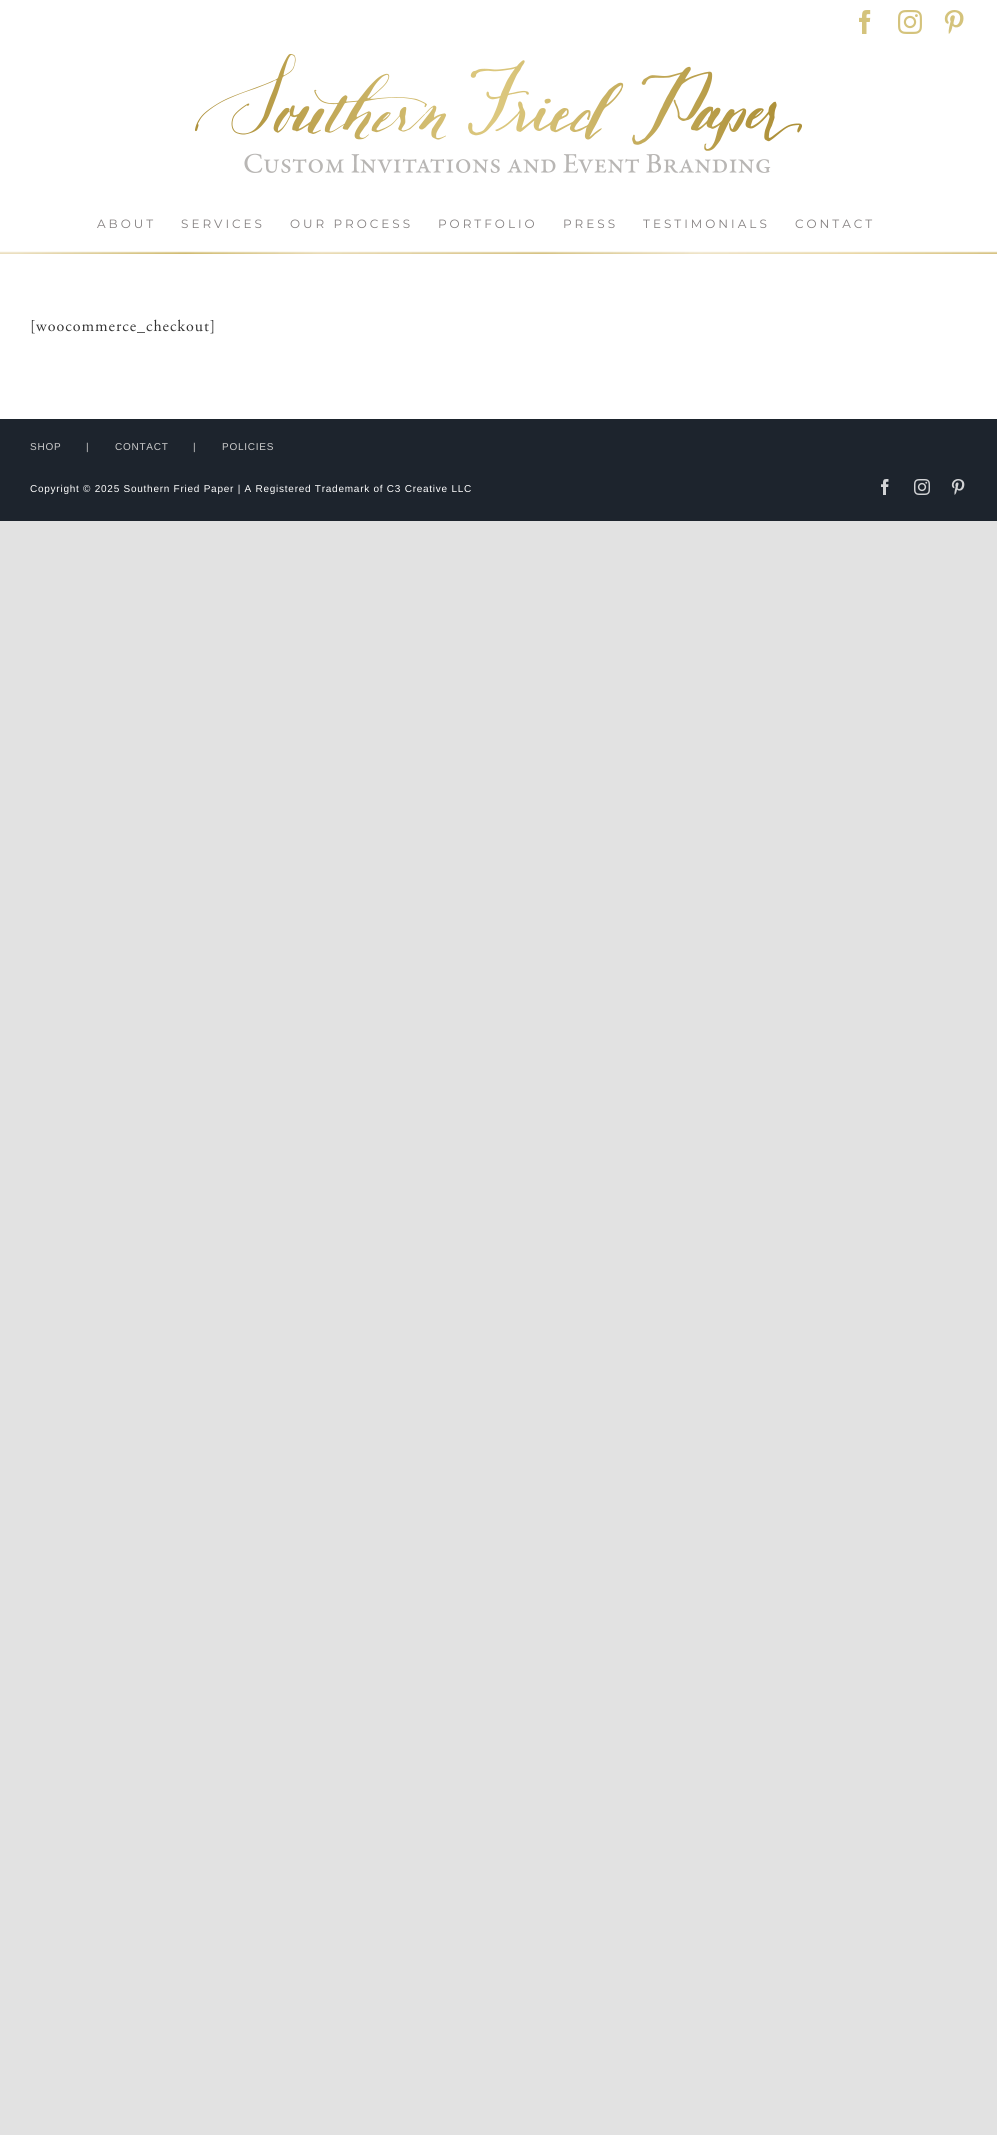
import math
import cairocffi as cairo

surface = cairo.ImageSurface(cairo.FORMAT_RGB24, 997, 2135)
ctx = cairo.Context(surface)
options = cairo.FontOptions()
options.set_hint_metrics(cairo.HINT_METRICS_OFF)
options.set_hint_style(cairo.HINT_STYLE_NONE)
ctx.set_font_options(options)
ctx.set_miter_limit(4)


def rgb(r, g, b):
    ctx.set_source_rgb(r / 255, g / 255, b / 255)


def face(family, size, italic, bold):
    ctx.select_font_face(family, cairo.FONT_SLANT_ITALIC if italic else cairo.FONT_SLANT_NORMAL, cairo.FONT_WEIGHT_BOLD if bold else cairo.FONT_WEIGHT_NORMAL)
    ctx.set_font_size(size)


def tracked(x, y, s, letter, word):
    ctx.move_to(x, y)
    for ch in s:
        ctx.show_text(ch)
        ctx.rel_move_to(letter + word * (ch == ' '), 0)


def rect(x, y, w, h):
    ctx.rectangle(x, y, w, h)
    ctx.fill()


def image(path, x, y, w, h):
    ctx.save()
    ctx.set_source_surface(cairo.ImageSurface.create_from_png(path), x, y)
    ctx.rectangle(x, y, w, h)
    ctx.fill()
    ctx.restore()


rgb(226, 226, 226)
ctx.paint()
rgb(255, 255, 255)
rect(0, 0, 997, 419)
image('image0.png', 859, 10, 12, 24)
image('image1.png', 898, 10, 24, 24)
image('image2.png', 944, 10, 20, 24)
image('image3.png', 195, 54, 607, 119)
image('image4.png', 0, 251, 997, 3)
face('Montserrat', 12, 0, 0)
rgb(130, 126, 126)
tracked(97, 228, 'ABOUT', 3, 0)
tracked(181, 228, 'SERVICES', 3, 0)
tracked(290, 228, 'OUR PROCESS', 3, 0)
tracked(438, 228, 'PORTFOLIO', 3, 0)
tracked(563, 228, 'PRESS', 3, 0)
tracked(643, 228, 'TESTIMONIALS', 3, 0)
tracked(795, 228, 'CONTACT', 3, 0)
face('Adobe Garamond', 16, 0, 0)
rgb(51, 51, 51)
tracked(30, 331, '[woocommerce_checkout]', 1, 0)
rgb(29, 36, 45)
rect(0, 419, 997, 102)
face('Liberation Sans', 10, 0, 0)
rgb(204, 204, 204)
tracked(30, 450, 'SHOP', 0.75, 0)
tracked(86, 450, '|', 0.75, 0)
tracked(115, 450, 'CONTACT', 0.75, 0)
tracked(193, 450, '|', 0.75, 0)
tracked(222, 450, 'POLICIES', 0.75, 0)
rgb(255, 255, 255)
tracked(30, 492, 'Copyright © 2025 Southern Fried Paper | A Registered Trademark of C3 Creative LLC', 0.75, 0)
image('image5.png', 881, 479, 8, 16)
image('image6.png', 914, 479, 16, 16)
image('image7.png', 951, 479, 14, 16)
surface.write_to_png('render.png')
